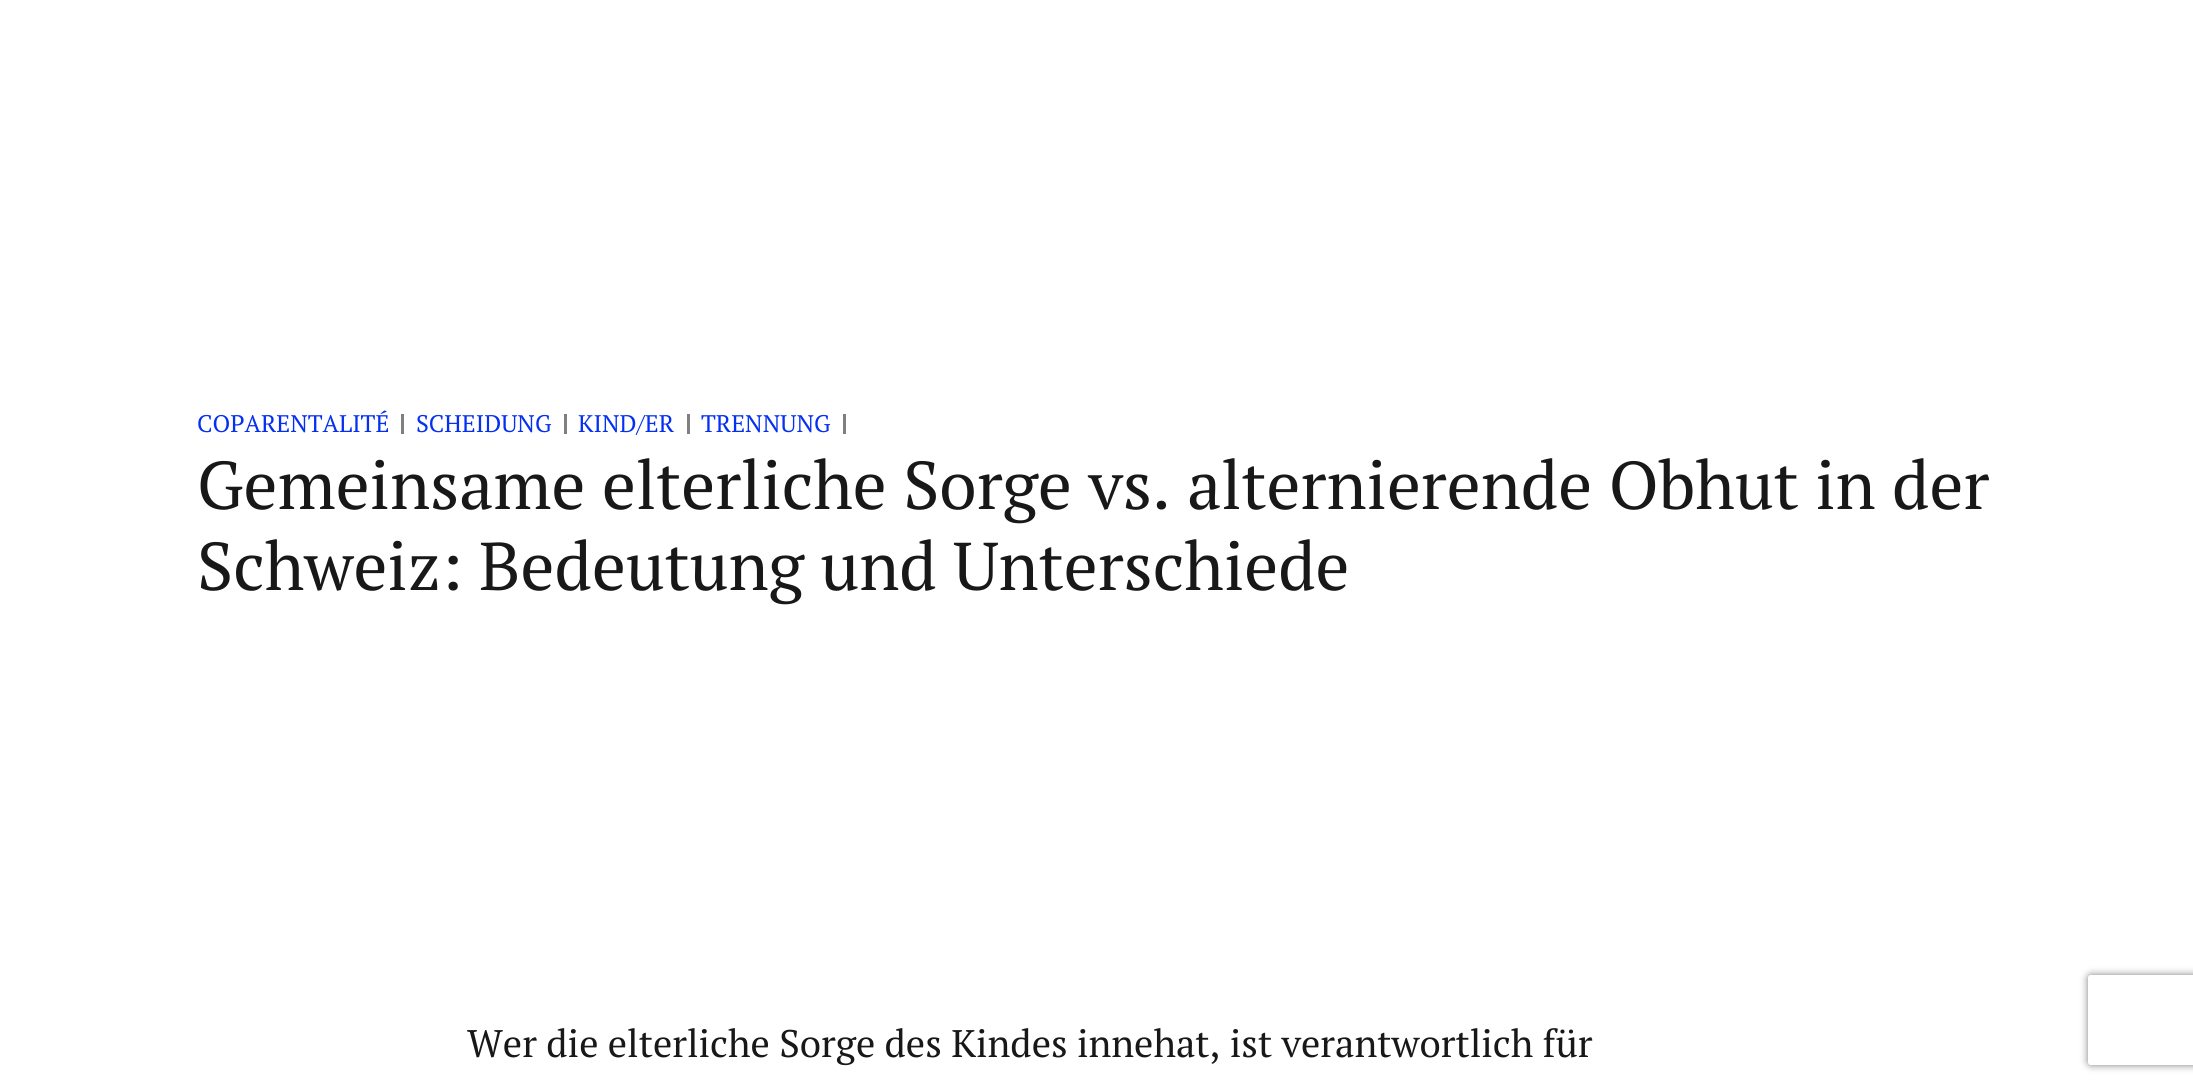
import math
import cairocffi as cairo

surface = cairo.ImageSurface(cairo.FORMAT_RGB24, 2193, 1085)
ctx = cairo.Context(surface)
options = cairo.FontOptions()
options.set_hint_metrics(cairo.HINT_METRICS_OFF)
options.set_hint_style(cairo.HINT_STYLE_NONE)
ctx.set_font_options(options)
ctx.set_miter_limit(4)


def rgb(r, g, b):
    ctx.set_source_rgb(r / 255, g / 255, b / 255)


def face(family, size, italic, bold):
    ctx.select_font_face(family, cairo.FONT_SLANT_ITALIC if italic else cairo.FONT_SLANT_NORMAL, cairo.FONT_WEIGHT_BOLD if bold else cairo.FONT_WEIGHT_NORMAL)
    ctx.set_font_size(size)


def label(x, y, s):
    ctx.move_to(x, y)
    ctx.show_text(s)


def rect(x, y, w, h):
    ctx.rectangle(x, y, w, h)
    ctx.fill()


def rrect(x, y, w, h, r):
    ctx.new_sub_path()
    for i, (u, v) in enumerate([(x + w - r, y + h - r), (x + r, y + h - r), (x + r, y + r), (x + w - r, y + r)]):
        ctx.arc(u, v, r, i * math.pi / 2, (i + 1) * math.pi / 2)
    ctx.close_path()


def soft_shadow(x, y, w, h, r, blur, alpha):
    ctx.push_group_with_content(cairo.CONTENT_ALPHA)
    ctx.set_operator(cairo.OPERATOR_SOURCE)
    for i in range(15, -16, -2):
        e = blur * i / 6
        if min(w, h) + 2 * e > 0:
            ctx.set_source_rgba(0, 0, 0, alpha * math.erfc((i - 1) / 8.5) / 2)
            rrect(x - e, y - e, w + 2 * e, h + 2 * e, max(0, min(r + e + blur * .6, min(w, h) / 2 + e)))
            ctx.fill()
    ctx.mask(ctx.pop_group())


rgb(255, 255, 255)
ctx.paint()
face('PT Serif', 24, 0, 0)
rgb(5, 48, 241)
label(197, 432, 'COPARENTALITÉ')
rgb(128, 128, 128)
rect(401, 414, 3, 20)
rgb(5, 48, 241)
label(416, 432, 'SCHEIDUNG')
rgb(128, 128, 128)
rect(564, 414, 3, 20)
rgb(5, 48, 241)
label(578, 432, 'KIND/ER')
rgb(128, 128, 128)
rect(687, 414, 3, 20)
rgb(5, 48, 241)
label(701, 432, 'TRENNUNG')
rgb(128, 128, 128)
rect(843, 414, 3, 20)
face('PT Serif', 67.5, 0, 0)
rgb(24, 24, 24)
label(197, 509, 'Gemeinsame elterliche Sorge vs. alternierende Obhut in der')
label(197, 590, 'Schweiz: Bedeutung und Unterschiede')
face('PT Serif', 38.4, 0, 0)
label(467, 1057, 'Wer die elterliche Sorge des Kindes innehat, ist verantwortlich für')
ctx.save()
ctx.set_fill_rule(cairo.FILL_RULE_EVEN_ODD)
ctx.new_path()
ctx.move_to(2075, 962)
ctx.line_to(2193, 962)
ctx.line_to(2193, 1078)
ctx.line_to(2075, 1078)
ctx.close_path()
ctx.move_to(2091, 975)
ctx.line_to(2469, 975)
ctx.curve_to(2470.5, 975, 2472, 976.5, 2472, 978)
ctx.line_to(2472, 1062)
ctx.curve_to(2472, 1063.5, 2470.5, 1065, 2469, 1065)
ctx.line_to(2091, 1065)
ctx.curve_to(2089.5, 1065, 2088, 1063.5, 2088, 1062)
ctx.line_to(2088, 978)
ctx.curve_to(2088, 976.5, 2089.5, 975, 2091, 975)
ctx.close_path()
ctx.clip()
rgb(128, 128, 128)
soft_shadow(2088, 975, 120, 90, 3, 4, 1)
ctx.restore()
surface.write_to_png('render.png')
